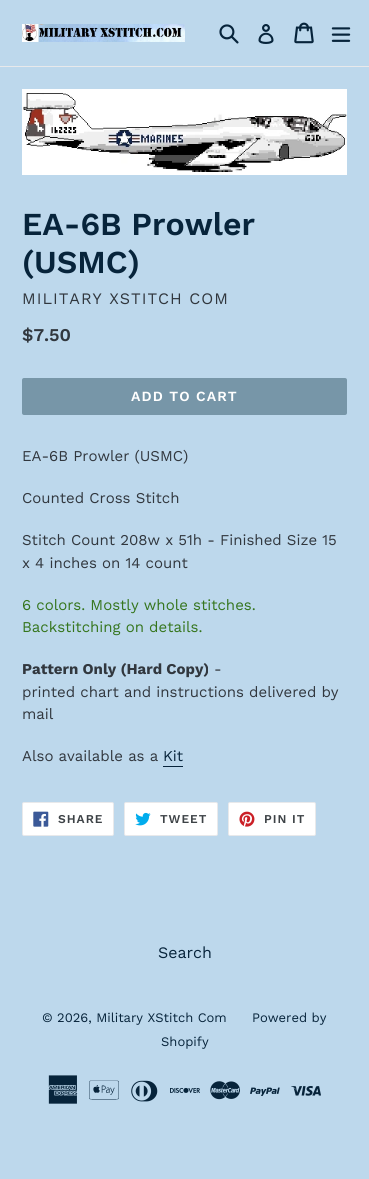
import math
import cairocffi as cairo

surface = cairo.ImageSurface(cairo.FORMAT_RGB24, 369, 1179)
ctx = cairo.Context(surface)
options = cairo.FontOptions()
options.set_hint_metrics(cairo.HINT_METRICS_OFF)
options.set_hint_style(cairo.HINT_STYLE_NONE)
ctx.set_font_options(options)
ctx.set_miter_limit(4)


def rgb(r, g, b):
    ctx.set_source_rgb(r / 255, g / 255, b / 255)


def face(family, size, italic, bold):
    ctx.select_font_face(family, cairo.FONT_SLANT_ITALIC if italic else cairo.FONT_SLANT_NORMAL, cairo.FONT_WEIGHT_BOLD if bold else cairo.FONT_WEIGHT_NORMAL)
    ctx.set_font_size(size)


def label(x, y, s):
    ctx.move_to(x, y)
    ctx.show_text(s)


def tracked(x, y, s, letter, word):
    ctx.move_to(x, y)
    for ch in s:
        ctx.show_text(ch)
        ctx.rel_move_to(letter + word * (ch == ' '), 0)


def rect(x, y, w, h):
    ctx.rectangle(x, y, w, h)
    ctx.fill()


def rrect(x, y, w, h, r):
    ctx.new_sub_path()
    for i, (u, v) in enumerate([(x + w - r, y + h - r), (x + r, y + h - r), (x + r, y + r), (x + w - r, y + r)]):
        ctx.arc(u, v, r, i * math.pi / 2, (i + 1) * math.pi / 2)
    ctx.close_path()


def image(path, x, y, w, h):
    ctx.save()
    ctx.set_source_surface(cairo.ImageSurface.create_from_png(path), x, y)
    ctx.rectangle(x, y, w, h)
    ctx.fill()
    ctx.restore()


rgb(189, 216, 236)
ctx.paint()
rgb(232, 233, 235)
rect(0, 66, 369, 1)
image('image0.png', 22, 24, 163, 18)
image('image1.png', 219, 24, 20, 20)
image('image2.png', 258, 24, 16, 20)
image('image3.png', 294, 22, 20, 22)
image('image4.png', 331, 27, 20, 15)
image('image5.png', 22, 89, 325, 86)
face('Work Sans SemiBold', 32, 0, 0)
rgb(7, 36, 59)
label(22, 235, 'EA-6B Prowler')
label(22, 273, '(USMC)')
face('Work Sans', 16, 0, 0)
rgb(49, 55, 62)
tracked(22, 304, 'MILITARY XSTITCH COM', 1, 0)
face('Work Sans SemiBold', 18, 0, 0)
label(22, 341, '$7.50')
rgb(119, 150, 168)
rrect(22, 378, 325, 37, 2)
ctx.fill()
face('Work Sans SemiBold', 14, 0, 0)
rgb(255, 255, 255)
tracked(131, 401, 'ADD TO CART', 1.1, 0)
face('Work Sans', 15, 0, 0)
rgb(49, 55, 62)
label(22, 461, 'EA-6B Prowler (USMC)')
label(22, 503, 'Counted Cross Stitch')
label(22, 545, 'Stitch Count 208w x 51h - Finished Size 15')
label(22, 568, 'x 4 inches on 14 count')
rgb(53, 117, 29)
label(22, 610, '6 colors. Mostly whole stitches.')
label(22, 632, 'Backstitching on details.')
face('Work Sans', 15, 0, 1)
rgb(49, 55, 62)
label(22, 674, 'Pattern Only (Hard Copy)')
face('Work Sans', 15, 0, 0)
label(214, 674, '-')
label(22, 697, 'printed chart and instructions delivered by')
label(22, 719, 'mail')
label(22, 761, 'Also available as a')
rgb(7, 36, 59)
label(163, 761, 'Kit')
rect(163, 766, 20, 1)
rgb(255, 255, 255)
rrect(22.5, 802.5, 91, 33, 1.5)
ctx.fill_preserve()
rgb(232, 233, 235)
ctx.set_line_width(1)
ctx.stroke()
image('image6.png', 33, 811, 16, 16)
face('Work Sans SemiBold', 12, 0, 0)
rgb(61, 66, 70)
tracked(58, 823, 'SHARE', 1, 0)
rgb(255, 255, 255)
rrect(124.5, 802.5, 93, 33, 1.5)
ctx.fill_preserve()
rgb(232, 233, 235)
ctx.stroke()
image('image7.png', 135, 812, 16, 14)
rgb(61, 66, 70)
tracked(160, 823, 'TWEET', 1, 0)
rgb(255, 255, 255)
rrect(228.5, 802.5, 87, 33, 1.5)
ctx.fill_preserve()
rgb(232, 233, 235)
ctx.stroke()
image('image8.png', 239, 811, 16, 16)
rgb(61, 66, 70)
tracked(264, 823, 'PIN IT', 1, 0)
face('Work Sans', 16, 0, 0)
rgb(7, 36, 59)
label(158, 958, 'Search')
face('Work Sans', 13, 0, 0)
label(42, 1022, '© 2026, Military XStitch Com')
label(252, 1022, 'Powered by')
label(161, 1046, 'Shopify')
image('image9.png', 48, 1075, 30, 29)
image('image10.png', 89, 1080, 30, 20)
image('image11.png', 131, 1080, 27, 22)
image('image12.png', 170, 1087, 30, 6)
image('image13.png', 210, 1081, 30, 19)
image('image14.png', 250, 1087, 30, 9)
image('image15.png', 291, 1086, 30, 10)
surface.write_to_png('render.png')
